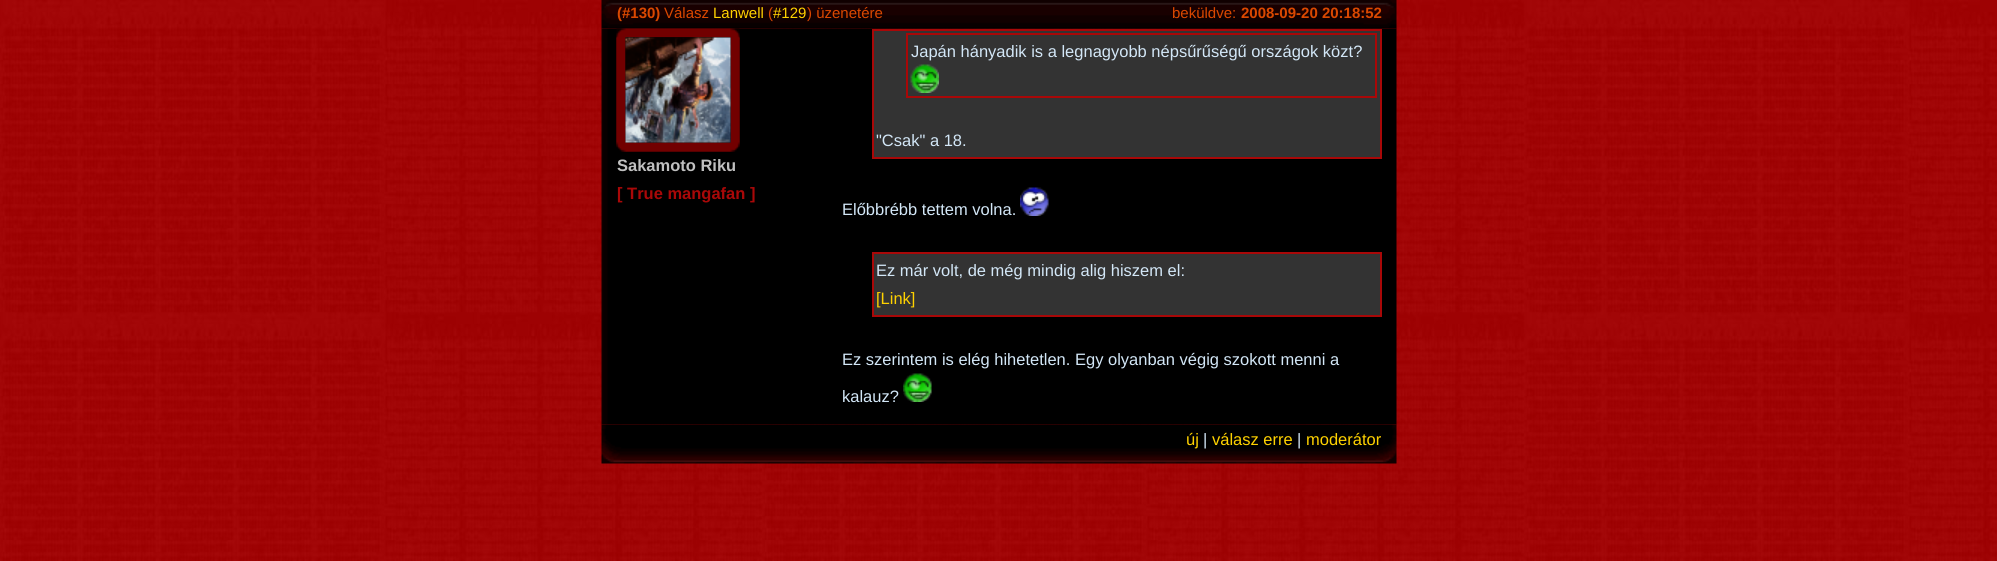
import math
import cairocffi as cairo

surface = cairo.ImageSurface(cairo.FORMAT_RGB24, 1997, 561)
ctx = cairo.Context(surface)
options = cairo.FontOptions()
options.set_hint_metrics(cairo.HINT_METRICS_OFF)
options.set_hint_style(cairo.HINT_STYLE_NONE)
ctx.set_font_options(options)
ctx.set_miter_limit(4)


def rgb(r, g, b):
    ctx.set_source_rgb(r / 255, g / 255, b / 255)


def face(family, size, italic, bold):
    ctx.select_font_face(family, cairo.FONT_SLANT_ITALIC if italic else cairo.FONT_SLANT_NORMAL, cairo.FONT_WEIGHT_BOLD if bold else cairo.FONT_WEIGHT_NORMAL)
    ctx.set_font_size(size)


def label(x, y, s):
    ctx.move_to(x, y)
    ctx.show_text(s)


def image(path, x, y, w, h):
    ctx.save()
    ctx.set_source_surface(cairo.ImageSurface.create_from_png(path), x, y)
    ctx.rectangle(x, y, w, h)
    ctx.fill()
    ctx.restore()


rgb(255, 255, 255)
ctx.paint()
image('image0.png', 0, 0, 1997, 561)
image('image1.png', 601, 0, 796, 29)
face('Liberation Sans', 15, 0, 1)
rgb(218, 72, 0)
label(617, 18, '(#130)')
face('Liberation Sans', 15, 0, 0)
label(664, 18, 'Válasz')
rgb(255, 210, 0)
label(713, 18, 'Lanwell')
rgb(218, 72, 0)
label(768, 18, '(')
rgb(255, 210, 0)
label(773, 18, '#129')
rgb(218, 72, 0)
label(807, 18, ') üzenetére')
label(1172, 18, 'beküldve:')
face('Liberation Sans', 15, 0, 1)
label(1241, 18, '2008-09-20 20:18:52')
image('image2.png', 601, 28, 796, 397)
image('image3.png', 616, 28, 124, 124)
image('image4.png', 616, 37, 124, 115)
image('image5.png', 625, 37, 106, 106)
face('Liberation Sans', 16.5, 0, 1)
rgb(192, 192, 192)
label(617, 171, 'Sakamoto Riku')
rgb(169, 8, 8)
label(617, 199, '[ True mangafan ]')
rgb(51, 51, 51)
ctx.rectangle(873, 30, 508, 128)
ctx.fill_preserve()
rgb(169, 8, 8)
ctx.stroke()
ctx.rectangle(907, 34, 469, 63)
ctx.stroke()
face('Liberation Sans', 16.5, 0, 0)
rgb(211, 231, 247)
label(911, 57, 'Japán hányadik is a legnagyobb népsűrűségű országok közt?')
image('image6.png', 910, 64, 29, 29)
label(876, 146, '"Csak" a 18.')
label(842, 215, 'Előbbrébb tettem volna.')
image('image7.png', 1020, 187, 29, 29)
rgb(51, 51, 51)
ctx.rectangle(873, 253, 508, 63)
ctx.fill_preserve()
rgb(169, 8, 8)
ctx.stroke()
rgb(211, 231, 247)
label(876, 276, 'Ez már volt, de még mindig alig hiszem el:')
rgb(255, 210, 0)
label(876, 304, '[Link]')
rgb(211, 231, 247)
label(842, 365, 'Ez szerintem is elég hihetetlen. Egy olyanban végig szokott menni a')
label(842, 402, 'kalauz?')
image('image8.png', 903, 373, 29, 29)
image('image9.png', 601, 424, 796, 40)
rgb(255, 210, 0)
label(1186, 445, 'új')
rgb(211, 231, 247)
label(1203, 445, '|')
rgb(255, 210, 0)
label(1212, 445, 'válasz erre')
rgb(211, 231, 247)
label(1297, 445, '|')
rgb(255, 210, 0)
label(1306, 445, 'moderátor')
surface.write_to_png('render.png')
